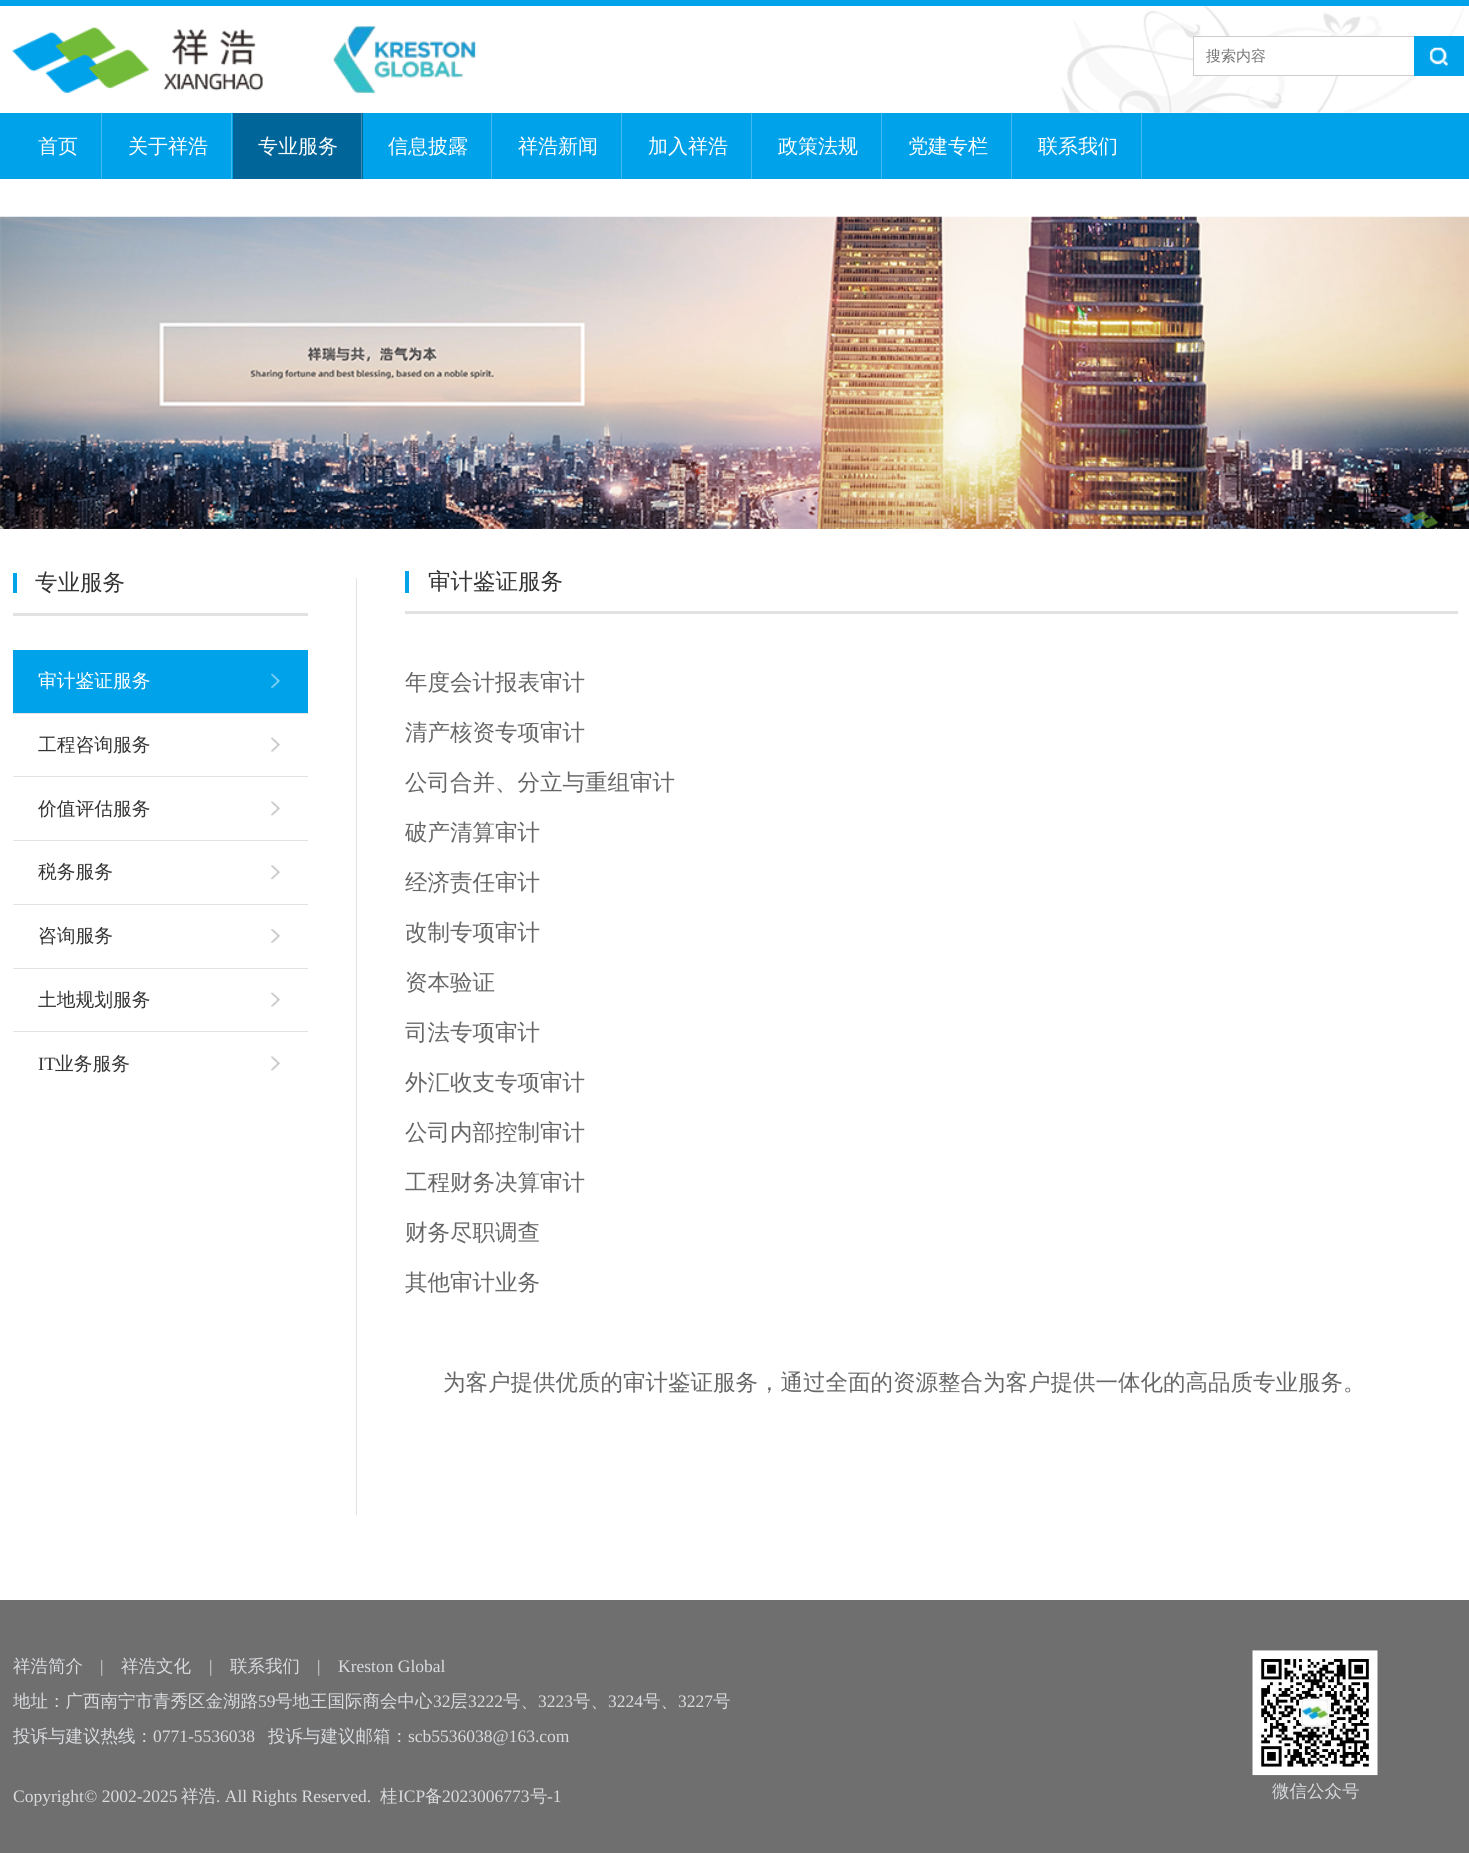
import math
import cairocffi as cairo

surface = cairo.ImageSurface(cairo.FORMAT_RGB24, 1469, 1853)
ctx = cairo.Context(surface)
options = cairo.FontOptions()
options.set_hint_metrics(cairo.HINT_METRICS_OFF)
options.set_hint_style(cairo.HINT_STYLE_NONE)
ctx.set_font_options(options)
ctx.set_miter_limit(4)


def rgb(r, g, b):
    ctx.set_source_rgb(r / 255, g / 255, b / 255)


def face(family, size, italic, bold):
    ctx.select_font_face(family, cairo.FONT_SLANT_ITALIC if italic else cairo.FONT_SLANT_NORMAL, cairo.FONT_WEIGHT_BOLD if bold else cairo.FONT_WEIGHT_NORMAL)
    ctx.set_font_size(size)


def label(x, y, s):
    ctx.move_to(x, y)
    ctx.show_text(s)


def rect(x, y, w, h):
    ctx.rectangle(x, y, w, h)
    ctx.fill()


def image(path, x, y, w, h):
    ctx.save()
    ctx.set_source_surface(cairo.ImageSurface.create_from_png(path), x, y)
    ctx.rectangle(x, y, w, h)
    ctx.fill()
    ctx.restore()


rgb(255, 255, 255)
ctx.paint()
rgb(0, 162, 233)
rect(0, 0, 1469, 6)
image('image0.png', 1061, 6, 404, 107)
image('image1.png', 12, 27, 251, 66)
image('image2.png', 333, 25, 144, 69)
rgb(255, 255, 255)
rect(1194, 37, 220, 38)
ctx.rectangle(1193.5, 36.5, 270, 39)
rgb(204, 204, 204)
ctx.set_line_width(1)
ctx.stroke()
face('WenQuanYi Zen Hei Medium', 15, 0, 0)
rgb(117, 117, 117)
label(1206, 61, '搜索内容')
rgb(0, 162, 233)
rect(1414, 36, 50, 40)
image('image3.png', 1429, 47, 19, 19)
rect(0, 113, 1469, 66)
face('WenQuanYi Zen Hei Medium', 20, 0, 0)
rgb(255, 255, 255)
label(38, 153, '首页')
rgb(64, 185, 239)
rect(101, 113, 1, 66)
rgb(255, 255, 255)
label(128, 153, '关于祥浩')
rgb(64, 185, 239)
rect(231, 113, 1, 66)
rgb(0, 102, 153)
rect(233, 113, 130, 66)
rgb(255, 255, 255)
label(258, 153, '专业服务')
rgb(64, 140, 179)
rect(361, 113, 1, 66)
rgb(255, 255, 255)
label(388, 153, '信息披露')
rgb(64, 185, 239)
rect(491, 113, 1, 66)
rgb(255, 255, 255)
label(518, 153, '祥浩新闻')
rgb(64, 185, 239)
rect(621, 113, 1, 66)
rgb(255, 255, 255)
label(648, 153, '加入祥浩')
rgb(64, 185, 239)
rect(751, 113, 1, 66)
rgb(255, 255, 255)
label(778, 153, '政策法规')
rgb(64, 185, 239)
rect(881, 113, 1, 66)
rgb(255, 255, 255)
label(908, 153, '党建专栏')
rgb(64, 185, 239)
rect(1011, 113, 1, 66)
rgb(255, 255, 255)
label(1038, 153, '联系我们')
rgb(64, 185, 239)
rect(1141, 113, 1, 66)
image('image4.png', 0, 216, 1469, 313)
rgb(226, 226, 226)
rect(13, 613, 295, 3)
rgb(0, 162, 233)
rect(13, 573, 4, 20)
face('WenQuanYi Zen Hei Medium', 22.5, 0, 0)
rgb(51, 51, 51)
label(35, 590, '专业服务')
rgb(226, 226, 226)
rect(13, 713, 295, 1)
rgb(0, 162, 233)
rect(13, 650, 295, 63)
image('image5.png', 271, 673, 10, 15)
face('WenQuanYi Zen Hei Medium', 18.75, 0, 0)
rgb(255, 255, 255)
label(38, 687, '审计鉴证服务')
rgb(226, 226, 226)
rect(13, 776, 295, 1)
image('image6.png', 271, 737, 10, 15)
rgb(51, 51, 51)
label(38, 751, '工程咨询服务')
rgb(226, 226, 226)
rect(13, 840, 295, 1)
image('image7.png', 271, 801, 10, 15)
rgb(51, 51, 51)
label(38, 815, '价值评估服务')
rgb(226, 226, 226)
rect(13, 904, 295, 1)
image('image8.png', 271, 865, 9, 15)
rgb(51, 51, 51)
label(38, 878, '税务服务')
rgb(226, 226, 226)
rect(13, 968, 295, 1)
image('image9.png', 271, 929, 9, 14)
rgb(51, 51, 51)
label(38, 942, '咨询服务')
rgb(226, 226, 226)
rect(13, 1031, 295, 1)
image('image6.png', 271, 992, 10, 15)
rgb(51, 51, 51)
label(38, 1006, '土地规划服务')
image('image7.png', 271, 1056, 10, 15)
face('Liberation Serif', 18.75, 0, 0)
label(38, 1070, 'IT')
face('WenQuanYi Zen Hei Medium', 18.75, 0, 0)
label(55, 1070, '业务服务')
rgb(226, 226, 226)
rect(356, 578, 1, 937)
rect(405, 611, 1053, 3)
rgb(0, 162, 233)
rect(405, 571, 4, 22)
face('WenQuanYi Zen Hei Medium', 22.5, 0, 0)
rgb(51, 51, 51)
label(428, 589, '审计鉴证服务')
rgb(102, 102, 102)
label(405, 690, '年度会计报表审计')
label(405, 740, '清产核资专项审计')
label(405, 790, '公司合并、分立与重组审计')
label(405, 840, '破产清算审计')
label(405, 890, '经济责任审计')
label(405, 940, '改制专项审计')
label(405, 990, '资本验证')
label(405, 1040, '司法专项审计')
label(405, 1090, '外汇收支专项审计')
label(405, 1140, '公司内部控制审计')
label(405, 1190, '工程财务决算审计')
label(405, 1240, '财务尽职调查')
label(405, 1290, '其他审计业务')
label(443, 1390, '为客户提供优质的审计鉴证服务，通过全面的资源整合为客户提供一体化的高品质专业服务。')
rgb(111, 111, 111)
rect(0, 1600, 1469, 253)
face('WenQuanYi Zen Hei Medium', 17.5, 0, 0)
rgb(217, 219, 222)
label(13, 1672, '祥浩简介')
face('Liberation Serif', 17.5, 0, 0)
label(100, 1672, '|')
face('WenQuanYi Zen Hei Medium', 17.5, 0, 0)
label(121, 1672, '祥浩文化')
face('Liberation Serif', 17.5, 0, 0)
label(209, 1672, '|')
face('WenQuanYi Zen Hei Medium', 17.5, 0, 0)
label(230, 1672, '联系我们')
face('Liberation Serif', 17.5, 0, 0)
label(317, 1672, '|')
label(338, 1672, 'Kreston Global')
face('WenQuanYi Zen Hei Medium', 17.5, 0, 0)
label(13, 1707, '地址：广西南宁市青秀区金湖路')
face('Liberation Serif', 17.5, 0, 0)
label(258, 1707, '59')
face('WenQuanYi Zen Hei Medium', 17.5, 0, 0)
label(275, 1707, '号地王国际商会中心')
face('Liberation Serif', 17.5, 0, 0)
label(433, 1707, '32')
face('WenQuanYi Zen Hei Medium', 17.5, 0, 0)
label(450, 1707, '层')
face('Liberation Serif', 17.5, 0, 0)
label(468, 1707, '3222')
face('WenQuanYi Zen Hei Medium', 17.5, 0, 0)
label(503, 1707, '号、')
face('Liberation Serif', 17.5, 0, 0)
label(538, 1707, '3223')
face('WenQuanYi Zen Hei Medium', 17.5, 0, 0)
label(573, 1707, '号、')
face('Liberation Serif', 17.5, 0, 0)
label(608, 1707, '3224')
face('WenQuanYi Zen Hei Medium', 17.5, 0, 0)
label(643, 1707, '号、')
face('Liberation Serif', 17.5, 0, 0)
label(678, 1707, '3227')
face('WenQuanYi Zen Hei Medium', 17.5, 0, 0)
label(713, 1707, '号')
label(13, 1742, '投诉与建议热线：')
face('Liberation Serif', 17.5, 0, 0)
label(153, 1742, '0771-5536038')
face('WenQuanYi Zen Hei Medium', 17.5, 0, 0)
label(268, 1742, '投诉与建议邮箱：')
face('Liberation Serif', 17.5, 0, 0)
label(408, 1742, 'scb5536038@163.com')
label(13, 1802, 'Copyright© 2002-2025')
face('WenQuanYi Zen Hei Medium', 17.5, 0, 0)
label(181, 1802, '祥浩')
face('Liberation Serif', 17.5, 0, 0)
label(216, 1802, '. All Rights Reserved.')
face('WenQuanYi Zen Hei Medium', 17.5, 0, 0)
label(380, 1802, '桂')
face('Liberation Serif', 17.5, 0, 0)
label(398, 1802, 'ICP')
face('WenQuanYi Zen Hei Medium', 17.5, 0, 0)
label(425, 1802, '备')
face('Liberation Serif', 17.5, 0, 0)
label(442, 1802, '2023006773')
face('WenQuanYi Zen Hei Medium', 17.5, 0, 0)
label(530, 1802, '号')
face('Liberation Serif', 17.5, 0, 0)
label(547, 1802, '-1')
image('image10.png', 1252, 1650, 126, 126)
face('WenQuanYi Zen Hei Medium', 17.5, 0, 0)
label(1272, 1797, '微信公众号')
surface.write_to_png('render.png')
